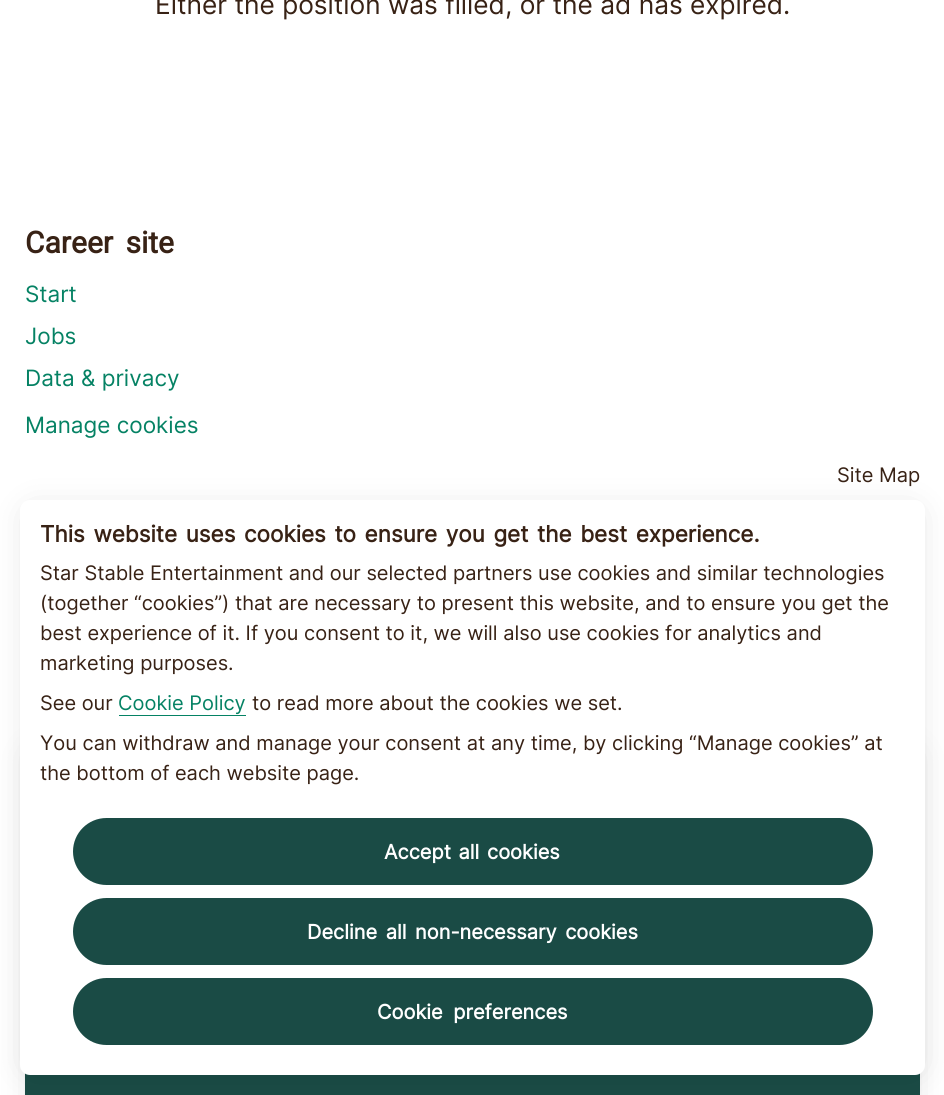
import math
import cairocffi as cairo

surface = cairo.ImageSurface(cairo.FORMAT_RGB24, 944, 1095)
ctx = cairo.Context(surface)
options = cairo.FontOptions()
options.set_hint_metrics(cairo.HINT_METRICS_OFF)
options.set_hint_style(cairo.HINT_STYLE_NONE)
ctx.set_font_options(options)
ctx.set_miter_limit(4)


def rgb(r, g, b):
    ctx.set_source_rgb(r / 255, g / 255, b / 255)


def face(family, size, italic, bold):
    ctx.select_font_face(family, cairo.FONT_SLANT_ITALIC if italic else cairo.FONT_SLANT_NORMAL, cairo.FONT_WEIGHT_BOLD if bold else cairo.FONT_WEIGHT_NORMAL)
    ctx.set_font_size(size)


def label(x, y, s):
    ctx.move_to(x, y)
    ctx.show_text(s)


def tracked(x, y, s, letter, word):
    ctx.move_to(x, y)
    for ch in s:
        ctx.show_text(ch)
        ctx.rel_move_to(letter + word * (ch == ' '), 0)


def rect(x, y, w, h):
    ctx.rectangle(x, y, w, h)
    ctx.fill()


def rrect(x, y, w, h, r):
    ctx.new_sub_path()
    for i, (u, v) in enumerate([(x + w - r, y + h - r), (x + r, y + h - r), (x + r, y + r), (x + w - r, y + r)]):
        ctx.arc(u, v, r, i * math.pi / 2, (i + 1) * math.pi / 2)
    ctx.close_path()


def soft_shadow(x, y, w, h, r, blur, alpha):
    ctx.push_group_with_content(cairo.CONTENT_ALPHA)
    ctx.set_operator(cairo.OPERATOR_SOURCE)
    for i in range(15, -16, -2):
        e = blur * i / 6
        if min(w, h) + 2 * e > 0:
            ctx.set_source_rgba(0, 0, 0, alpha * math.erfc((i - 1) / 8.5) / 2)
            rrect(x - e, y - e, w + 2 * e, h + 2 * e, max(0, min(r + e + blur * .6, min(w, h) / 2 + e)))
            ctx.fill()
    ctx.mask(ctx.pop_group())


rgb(255, 255, 255)
ctx.paint()
face('Inter', 26.25, 0, 0)
rgb(56, 34, 21)
label(155, 14, 'Either the position was filled, or the ad has expired.')
face('Roboto', 30, 0, 1)
tracked(25, 253, 'Career site', 0, 5)
face('Inter', 22.5, 0, 0)
rgb(5, 130, 100)
label(25, 302, 'Start')
label(25, 344, 'Jobs')
label(25, 386, 'Data & privacy')
label(25, 433, 'Manage cookies')
face('Inter', 20, 0, 0)
rgb(56, 34, 21)
label(837, 482, 'Site Map')
rgb(0, 0, 0)
soft_shadow(38, 755, 870, 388, 0, 17, 0.18)
rgb(26, 75, 69)
rect(25, 1073, 895, 22)
rgb(0, 0, 0)
soft_shadow(33, 515, 880, 550, 0, 17, 0.18)
rgb(255, 255, 255)
rrect(20, 500, 905, 575, 10)
ctx.fill()
face('Inter', 22.5, 0, 1)
rgb(56, 34, 21)
tracked(40, 542, 'This website uses cookies to ensure you get the best experience.', 0, 2.25)
face('Inter', 20, 0, 0)
label(40, 580, 'Star Stable Entertainment and our selected partners use cookies and similar technologies')
label(40, 610, '(together “cookies”) that are necessary to present this website, and to ensure you get the')
label(40, 640, 'best experience of it. If you consent to it, we will also use cookies for analytics and')
label(40, 670, 'marketing purposes.')
label(40, 710, 'See our')
rgb(5, 130, 100)
label(118, 710, 'Cookie Policy')
rect(119, 715, 127, 1)
rgb(56, 34, 21)
label(252, 710, 'to read more about the cookies we set.')
label(40, 750, 'You can withdraw and manage your consent at any time, by clicking “Manage cookies” at')
label(40, 780, 'the bottom of each website page.')
rgb(26, 75, 69)
rrect(73, 818, 800, 67, 33.5)
ctx.fill()
face('Inter', 20, 0, 1)
rgb(255, 255, 255)
tracked(384, 859, 'Accept all cookies', 0, 2)
rgb(26, 75, 69)
rrect(73, 898, 800, 67, 33.5)
ctx.fill()
rgb(255, 255, 255)
tracked(307, 939, 'Decline all non-necessary cookies', 0, 3)
rgb(26, 75, 69)
rrect(73, 978, 800, 67, 33.5)
ctx.fill()
rgb(255, 255, 255)
tracked(377, 1019, 'Cookie preferences', 0, 5)
surface.write_to_png('render.png')
